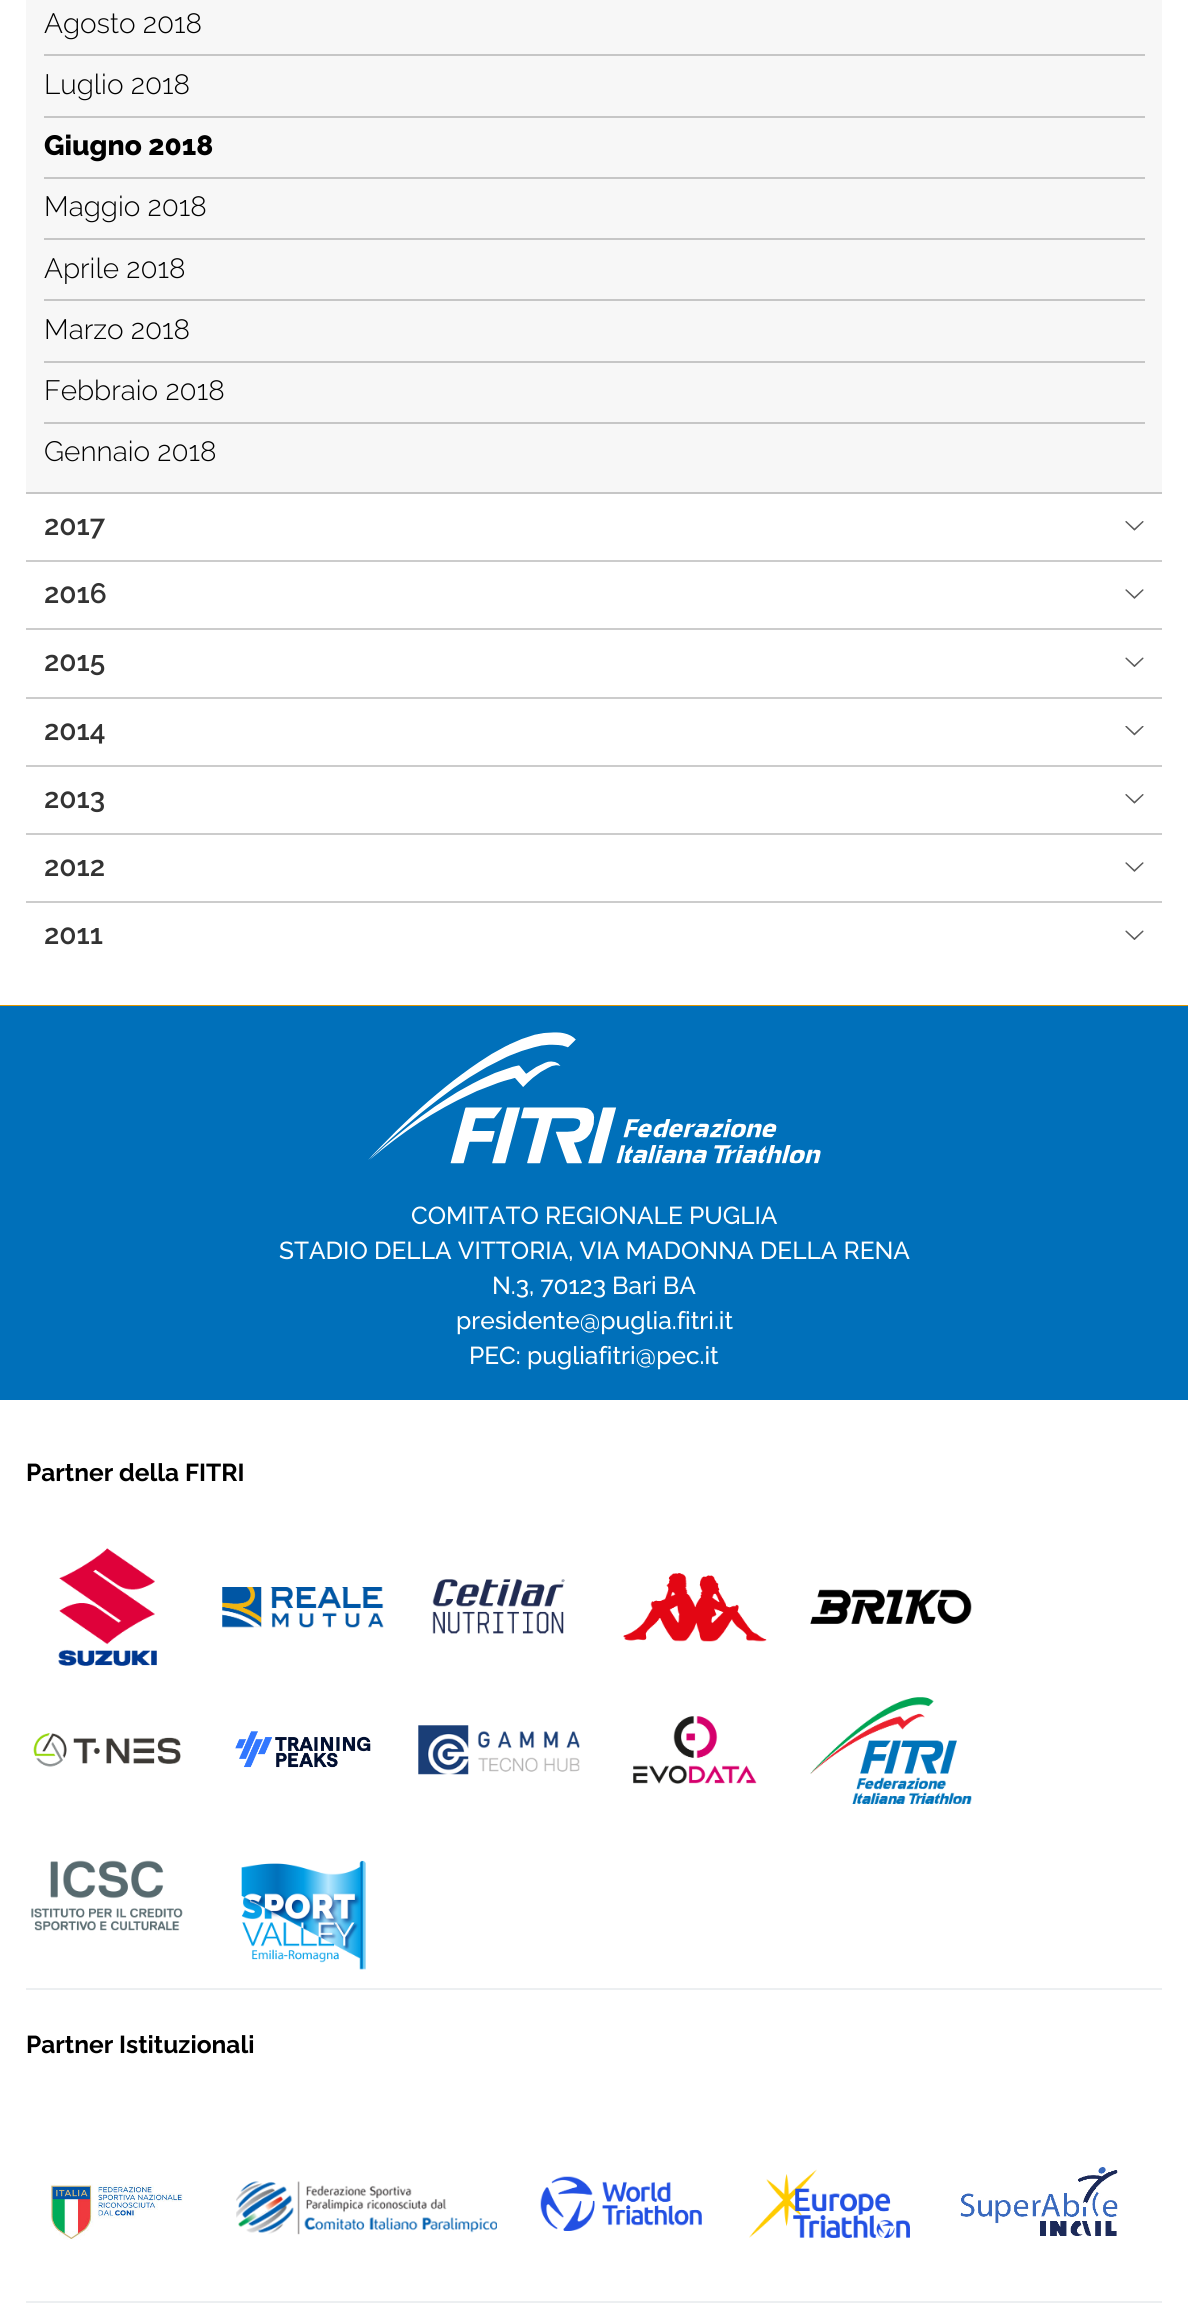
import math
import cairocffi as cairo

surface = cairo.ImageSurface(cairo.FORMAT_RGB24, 1188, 2303)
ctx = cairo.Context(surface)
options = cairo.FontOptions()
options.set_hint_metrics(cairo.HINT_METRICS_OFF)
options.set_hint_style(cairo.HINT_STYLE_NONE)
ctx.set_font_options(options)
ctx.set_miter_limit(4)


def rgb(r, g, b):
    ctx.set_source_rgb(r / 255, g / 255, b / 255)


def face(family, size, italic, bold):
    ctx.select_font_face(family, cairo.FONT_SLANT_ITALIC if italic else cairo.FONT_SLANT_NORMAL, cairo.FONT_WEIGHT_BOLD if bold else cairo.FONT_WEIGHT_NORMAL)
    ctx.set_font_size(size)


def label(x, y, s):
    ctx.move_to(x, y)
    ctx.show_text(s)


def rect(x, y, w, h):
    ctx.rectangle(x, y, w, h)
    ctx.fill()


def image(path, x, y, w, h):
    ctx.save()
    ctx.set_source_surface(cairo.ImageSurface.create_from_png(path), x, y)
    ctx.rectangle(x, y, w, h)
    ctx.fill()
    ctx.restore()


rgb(255, 255, 255)
ctx.paint()
rgb(247, 247, 247)
rect(26, 0, 1136, 492)
rgb(198, 198, 198)
rect(26, 492, 1136, 2)
rect(44, 54, 1101, 2)
face('Raleway Light', 28, 0, 0)
rgb(0, 0, 0)
label(44, 33, 'Agosto 2018')
rgb(198, 198, 198)
rect(44, 116, 1101, 2)
rgb(0, 0, 0)
label(44, 94, 'Luglio 2018')
rgb(198, 198, 198)
rect(44, 177, 1101, 2)
face('Raleway ExtraBold', 28, 0, 0)
rgb(0, 0, 0)
label(44, 155, 'Giugno 2018')
rgb(198, 198, 198)
rect(44, 238, 1101, 2)
face('Raleway Light', 28, 0, 0)
rgb(0, 0, 0)
label(44, 216, 'Maggio 2018')
rgb(198, 198, 198)
rect(44, 299, 1101, 2)
rgb(0, 0, 0)
label(44, 278, 'Aprile 2018')
rgb(198, 198, 198)
rect(44, 361, 1101, 2)
rgb(0, 0, 0)
label(44, 339, 'Marzo 2018')
rgb(198, 198, 198)
rect(44, 422, 1101, 2)
rgb(0, 0, 0)
label(44, 400, 'Febbraio 2018')
label(44, 461, 'Gennaio 2018')
rgb(204, 204, 204)
rect(26, 560, 1136, 2)
face('Raleway SemiBold', 28, 0, 0)
rgb(51, 51, 51)
label(44, 535, '2017')
image('image0.png', 1125, 521, 19, 10)
rgb(204, 204, 204)
rect(26, 628, 1136, 2)
rgb(51, 51, 51)
label(44, 603, '2016')
image('image1.png', 1125, 589, 19, 10)
rgb(204, 204, 204)
rect(26, 697, 1136, 2)
rgb(51, 51, 51)
label(44, 671, '2015')
image('image2.png', 1125, 657, 19, 10)
rgb(204, 204, 204)
rect(26, 765, 1136, 2)
rgb(51, 51, 51)
label(44, 740, '2014')
image('image3.png', 1125, 726, 19, 10)
rgb(204, 204, 204)
rect(26, 833, 1136, 2)
rgb(51, 51, 51)
label(44, 808, '2013')
image('image0.png', 1125, 794, 19, 10)
rgb(204, 204, 204)
rect(26, 901, 1136, 2)
rgb(51, 51, 51)
label(44, 876, '2012')
image('image1.png', 1125, 862, 19, 10)
label(44, 944, '2011')
image('image2.png', 1125, 930, 19, 10)
rgb(226, 151, 0)
rect(0, 1005, 1188, 1)
rgb(0, 112, 186)
rect(0, 1006, 1188, 394)
image('image4.png', 368, 1032, 453, 132)
face('Raleway Medium', 24.5, 0, 0)
rgb(255, 255, 255)
label(411, 1224, 'COMITATO REGIONALE PUGLIA')
label(279, 1259, 'STADIO DELLA VITTORIA, VIA MADONNA DELLA RENA')
label(492, 1294, 'N.3, 70123 Bari BA')
label(456, 1329, 'presidente@puglia.fitri.it')
label(469, 1364, 'PEC: pugliafitri@pec.it')
face('Raleway', 24.5, 0, 1)
rgb(0, 0, 0)
label(26, 1481, 'Partner della FITRI')
rgb(236, 239, 241)
rect(26, 1988, 1136, 2)
image('image5.png', 58, 1548, 99, 118)
image('image6.png', 222, 1587, 162, 41)
image('image7.png', 432, 1579, 133, 55)
image('image8.png', 623, 1573, 144, 69)
image('image9.png', 810, 1589, 162, 35)
image('image10.png', 33, 1733, 148, 34)
image('image11.png', 235, 1731, 136, 37)
image('image12.png', 418, 1725, 162, 50)
image('image13.png', 633, 1716, 124, 68)
image('image14.png', 810, 1697, 162, 107)
image('image15.png', 31, 1860, 152, 71)
image('image16.png', 241, 1860, 125, 110)
rgb(0, 0, 0)
label(26, 2053, 'Partner Istituzionali')
rgb(236, 239, 241)
rect(26, 2301, 1136, 2)
image('image17.png', 50, 2184, 133, 56)
image('image18.png', 236, 2181, 261, 54)
image('image19.png', 540, 2176, 162, 55)
image('image20.png', 749, 2169, 161, 69)
image('image21.png', 960, 2167, 158, 69)
surface.write_to_png('render.png')
